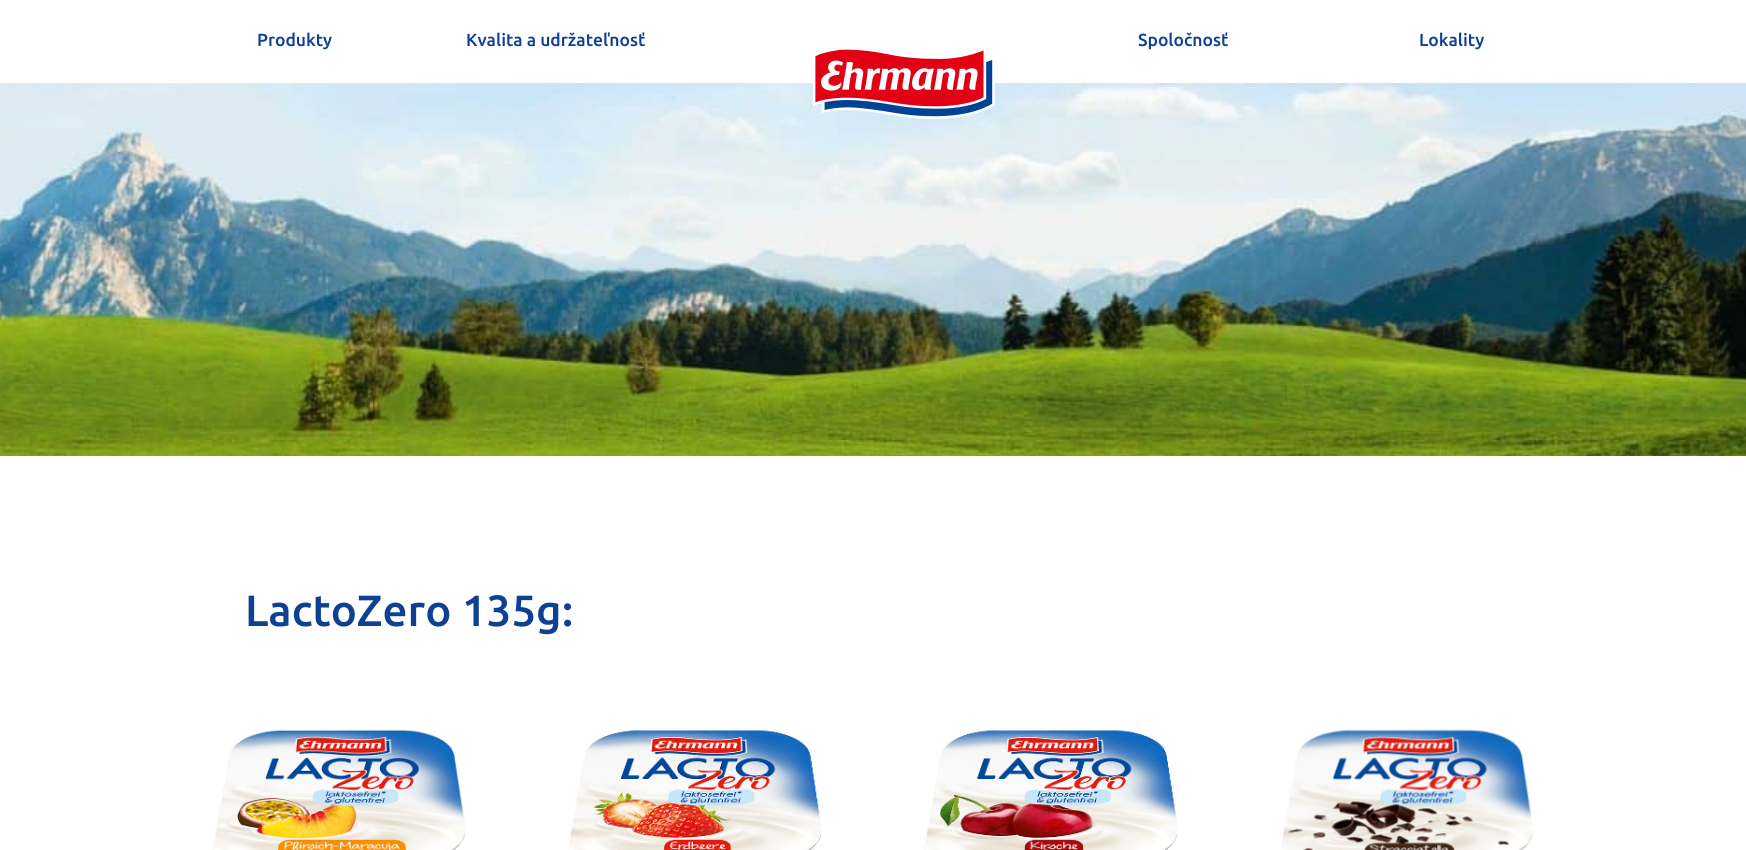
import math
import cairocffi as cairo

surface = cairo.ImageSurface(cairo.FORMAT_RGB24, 1746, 850)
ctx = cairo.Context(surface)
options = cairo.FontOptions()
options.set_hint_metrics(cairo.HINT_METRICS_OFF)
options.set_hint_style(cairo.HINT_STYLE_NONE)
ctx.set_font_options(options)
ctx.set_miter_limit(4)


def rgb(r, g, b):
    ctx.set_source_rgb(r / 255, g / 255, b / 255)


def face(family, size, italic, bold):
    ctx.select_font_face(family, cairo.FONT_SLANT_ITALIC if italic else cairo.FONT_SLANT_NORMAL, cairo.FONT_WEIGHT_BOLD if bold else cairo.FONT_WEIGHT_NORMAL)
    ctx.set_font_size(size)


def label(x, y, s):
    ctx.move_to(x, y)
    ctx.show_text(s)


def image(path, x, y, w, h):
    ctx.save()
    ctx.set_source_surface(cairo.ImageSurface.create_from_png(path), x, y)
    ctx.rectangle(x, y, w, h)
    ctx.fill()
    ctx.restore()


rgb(255, 255, 255)
ctx.paint()
face('Ubuntu Medium', 17.5, 0, 0)
rgb(14, 64, 148)
label(257, 46, 'Produkty')
label(466, 46, 'Kvalita a udržateľnosť')
label(1138, 46, 'Spoločnosť')
label(1419, 46, 'Lokality')
image('image1.png', 0, 83, 1746, 373)
image('image0.png', 813, 49, 182, 70)
face('Ubuntu Medium', 43.75, 0, 0)
label(245, 626, 'LactoZero 135g:')
image('image2.png', 213, 729, 253, 121)
image('image3.png', 568, 729, 254, 121)
image('image4.png', 924, 730, 254, 120)
image('image5.png', 1281, 729, 252, 121)
surface.write_to_png('render.png')
